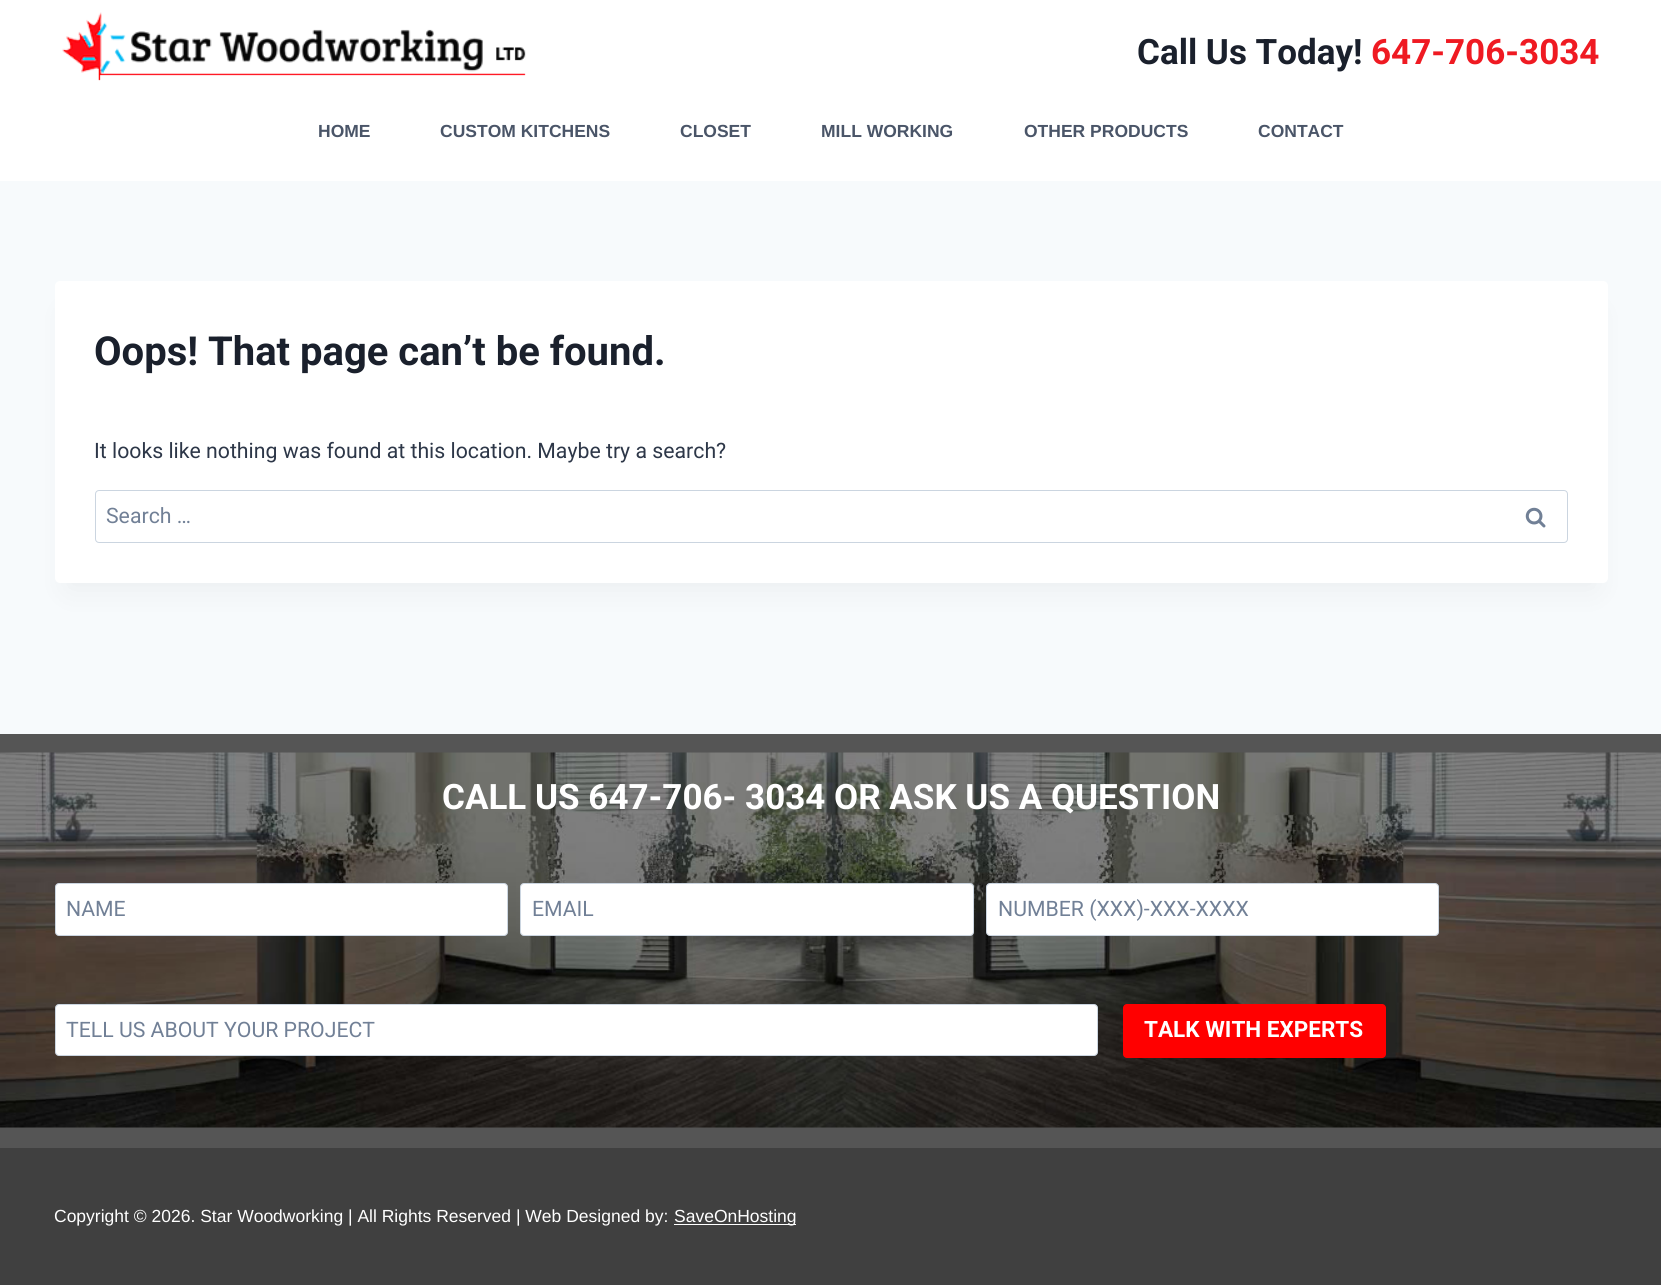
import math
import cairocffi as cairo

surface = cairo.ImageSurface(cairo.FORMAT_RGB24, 1661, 1285)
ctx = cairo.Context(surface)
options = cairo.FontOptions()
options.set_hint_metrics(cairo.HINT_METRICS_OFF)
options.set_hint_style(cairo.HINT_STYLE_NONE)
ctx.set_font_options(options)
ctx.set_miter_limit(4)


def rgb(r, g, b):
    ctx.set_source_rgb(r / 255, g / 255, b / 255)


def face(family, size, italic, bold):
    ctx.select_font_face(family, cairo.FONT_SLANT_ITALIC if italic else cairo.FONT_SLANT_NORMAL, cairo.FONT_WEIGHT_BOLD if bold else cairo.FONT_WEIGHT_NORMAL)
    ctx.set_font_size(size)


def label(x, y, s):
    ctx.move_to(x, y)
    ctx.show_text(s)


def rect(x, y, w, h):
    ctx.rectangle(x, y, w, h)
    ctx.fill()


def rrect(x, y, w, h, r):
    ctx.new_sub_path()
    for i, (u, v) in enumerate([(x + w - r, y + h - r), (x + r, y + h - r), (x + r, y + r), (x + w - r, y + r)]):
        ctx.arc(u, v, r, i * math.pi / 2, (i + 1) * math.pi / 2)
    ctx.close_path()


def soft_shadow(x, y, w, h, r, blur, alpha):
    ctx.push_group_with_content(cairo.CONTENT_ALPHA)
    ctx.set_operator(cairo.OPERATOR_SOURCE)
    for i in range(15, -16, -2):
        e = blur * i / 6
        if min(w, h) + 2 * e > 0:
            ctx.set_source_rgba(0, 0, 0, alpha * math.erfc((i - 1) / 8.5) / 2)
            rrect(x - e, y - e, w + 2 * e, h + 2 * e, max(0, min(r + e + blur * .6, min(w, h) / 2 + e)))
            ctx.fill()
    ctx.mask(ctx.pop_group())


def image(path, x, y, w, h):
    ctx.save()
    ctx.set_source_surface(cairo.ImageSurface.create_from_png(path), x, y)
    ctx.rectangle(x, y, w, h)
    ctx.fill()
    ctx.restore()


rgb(247, 250, 252)
ctx.paint()
rgb(255, 255, 255)
rect(0, 0, 1661, 181)
image('image0.png', 62, 12, 464, 69)
face('Roboto', 35, 0, 1)
rgb(26, 32, 44)
label(1137, 64, 'Call Us Today!')
rgb(239, 26, 34)
label(1371, 64, '647-706-3034')
face('Liberation Sans', 17.5, 0, 1)
rgb(74, 85, 104)
label(318, 137, 'HOME')
label(440, 137, 'CUSTOM KITCHENS')
label(680, 137, 'CLOSET')
label(821, 137, 'MILL WORKING')
label(1024, 137, 'OTHER PRODUCTS')
label(1258, 137, 'CONTACT')
rgb(0, 0, 0)
soft_shadow(68, 313, 1527, 276, 0, 15.5, 0.05)
rgb(255, 255, 255)
rrect(55, 281, 1553, 302, 5)
ctx.fill()
face('Roboto', 40, 0, 1)
rgb(26, 32, 44)
label(94, 365, 'Oops! That page can’t be found.')
face('Roboto', 21.25, 0, 0)
rgb(45, 55, 72)
label(94, 458, 'It looks like nothing was found at this location. Maybe try a search?')
rrect(95.5, 490.5, 1472, 52, 3.5)
rgb(203, 213, 224)
ctx.set_line_width(1)
ctx.stroke()
rgb(113, 128, 150)
label(106, 523, 'Search …')
image('image1.png', 1525, 507, 21, 21)
rgb(85, 85, 85)
rect(0, 734, 1661, 414)
image('image2.png', 0, 752, 1661, 376)
face('Roboto', 35, 0, 1)
rgb(255, 255, 255)
label(442, 809, 'CALL US 647-706- 3034 OR ASK US A QUESTION')
rrect(55.5, 883.5, 452, 52, 3.5)
ctx.fill_preserve()
rgb(203, 213, 224)
ctx.stroke()
face('Roboto', 21.25, 0, 0)
rgb(113, 128, 150)
label(66, 916, 'NAME')
rgb(255, 255, 255)
rrect(520.5, 883.5, 453, 52, 3.5)
ctx.fill_preserve()
rgb(203, 213, 224)
ctx.stroke()
rgb(113, 128, 150)
label(532, 916, 'EMAIL')
rgb(255, 255, 255)
rrect(986.5, 883.5, 452, 52, 3.5)
ctx.fill_preserve()
rgb(203, 213, 224)
ctx.stroke()
rgb(113, 128, 150)
label(998, 916, 'NUMBER (XXX)-XXX-XXXX')
rgb(255, 255, 255)
rrect(55.5, 1004.5, 1042, 51, 3.5)
ctx.fill_preserve()
rgb(203, 213, 224)
ctx.stroke()
rgb(113, 128, 150)
label(66, 1037, 'TELL US ABOUT YOUR PROJECT')
rgb(255, 0, 0)
rrect(1123, 1004, 263, 54, 4)
ctx.fill()
face('Roboto', 22.5, 0, 1)
rgb(255, 255, 255)
label(1144, 1037, 'TALK WITH EXPERTS')
rgb(64, 64, 64)
rect(0, 1148, 1661, 137)
face('Liberation Sans', 17.5, 0, 0)
rgb(255, 255, 255)
label(54, 1222, 'Copyright © 2026. Star Woodworking | All Rights Reserved | Web Designed by:')
rect(674, 1224, 122, 1)
label(674, 1222, 'SaveOnHosting')
surface.write_to_png('render.png')
